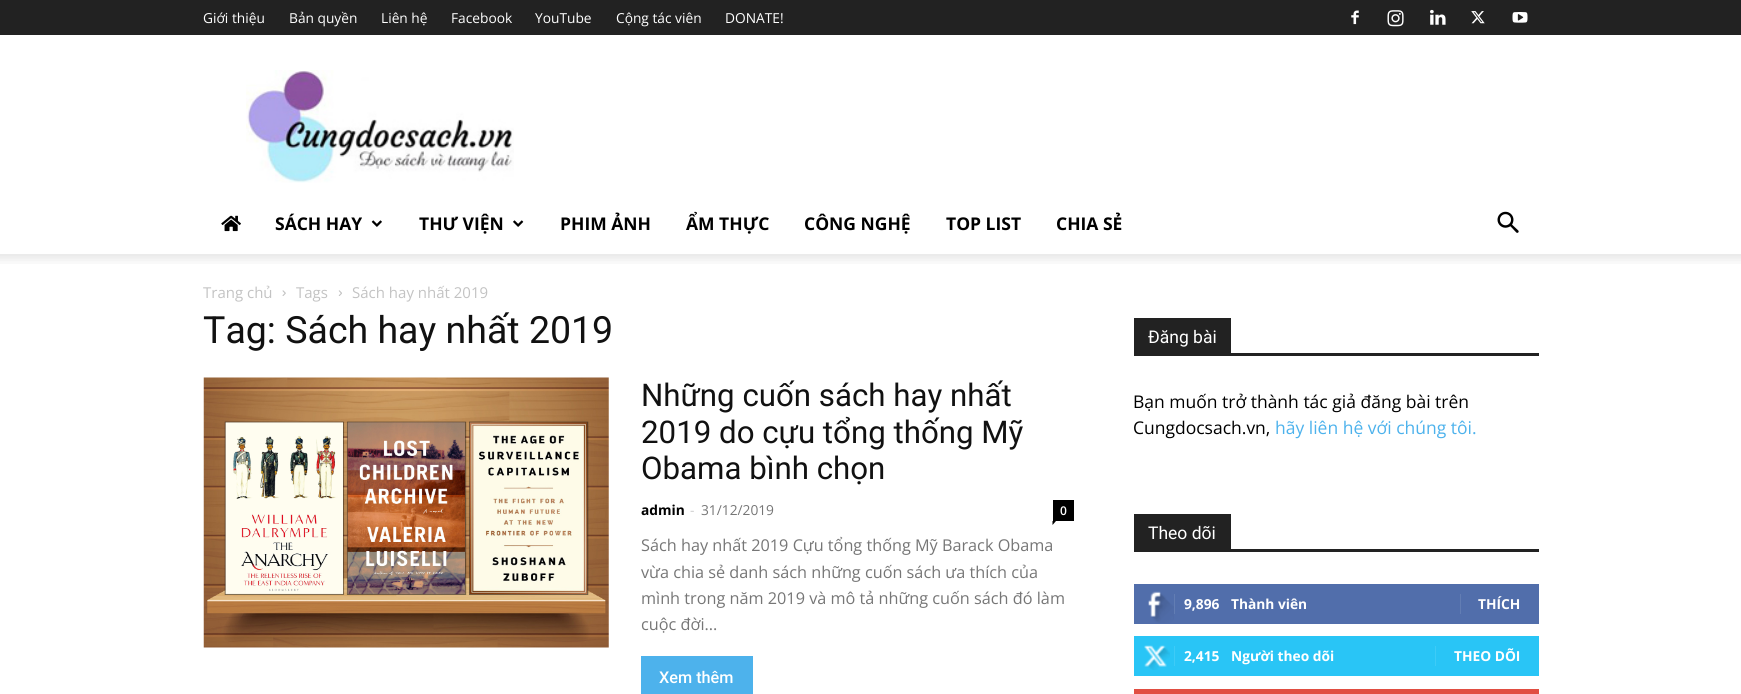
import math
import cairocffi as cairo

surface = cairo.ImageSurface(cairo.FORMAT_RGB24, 1741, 694)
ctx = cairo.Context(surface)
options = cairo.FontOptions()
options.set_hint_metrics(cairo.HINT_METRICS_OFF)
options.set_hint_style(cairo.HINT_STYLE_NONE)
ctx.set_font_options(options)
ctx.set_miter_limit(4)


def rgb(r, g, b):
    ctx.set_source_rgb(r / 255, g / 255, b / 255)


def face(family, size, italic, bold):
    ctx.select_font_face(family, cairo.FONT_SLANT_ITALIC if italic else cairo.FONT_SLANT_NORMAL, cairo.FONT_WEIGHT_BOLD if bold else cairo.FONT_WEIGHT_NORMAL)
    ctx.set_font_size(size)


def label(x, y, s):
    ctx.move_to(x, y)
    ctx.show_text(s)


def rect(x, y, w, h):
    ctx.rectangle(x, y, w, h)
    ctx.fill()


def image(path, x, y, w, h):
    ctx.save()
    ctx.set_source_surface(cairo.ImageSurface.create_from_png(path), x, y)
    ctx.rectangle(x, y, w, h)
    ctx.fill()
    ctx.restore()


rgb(255, 255, 255)
ctx.paint()
rgb(34, 34, 34)
rect(0, 0, 1741, 35)
face('Open Sans', 13.75, 0, 0)
rgb(255, 255, 255)
label(203, 23, 'Giới thiệu')
label(289, 23, 'Bản quyền')
label(381, 23, 'Liên hệ')
label(451, 23, 'Facebook')
label(535, 23, 'YouTube')
label(616, 23, 'Cộng tác viên')
label(725, 23, 'DONATE!')
image('image0.png', 1351, 10, 8, 15)
image('image1.png', 1387, 10, 17, 17)
image('image2.png', 1430, 9, 16, 16)
image('image3.png', 1471, 11, 14, 13)
image('image4.png', 1512, 12, 16, 11)
image('image5.png', 246, 70, 268, 113)
image('image6.png', 221, 215, 20, 17)
face('Open Sans', 17.5, 0, 1)
rgb(0, 0, 0)
label(275, 230, 'SÁCH HAY')
image('image7.png', 371, 220, 11, 7)
label(419, 230, 'THƯ VIỆN')
image('image8.png', 513, 220, 11, 7)
label(560, 230, 'PHIM ẢNH')
label(686, 230, 'ẨM THỰC')
label(804, 230, 'CÔNG NGHỆ')
label(946, 230, 'TOP LIST')
label(1056, 230, 'CHIA SẺ')
image('image9.png', 1497, 211, 22, 22)
image('image10.png', 0, 254, 1741, 10)
face('Open Sans', 15, 0, 0)
rgb(195, 195, 195)
label(203, 298, 'Trang chủ')
image('image11.png', 282, 290, 4, 6)
label(296, 298, 'Tags')
image('image12.png', 338, 290, 4, 6)
label(352, 298, 'Sách hay nhất 2019')
face('Roboto', 37.5, 0, 0)
rgb(17, 17, 17)
label(203, 343, 'Tag: Sách hay nhất 2019')
image('image13.png', 203, 377, 406, 271)
face('Roboto', 31.25, 0, 0)
label(641, 406, 'Những cuốn sách hay nhất')
label(641, 443, '2019 do cựu tổng thống Mỹ')
label(641, 479, 'Obama bình chọn')
face('Open Sans', 13.75, 0, 1)
rgb(0, 0, 0)
label(641, 515, 'admin')
face('Open Sans', 13.75, 0, 0)
rgb(204, 204, 204)
label(690, 515, '-')
rgb(118, 118, 118)
label(701, 515, '31/12/2019')
rgb(0, 0, 0)
rect(1053, 500, 21, 21)
face('Open Sans SemiBold', 12, 0, 0)
rgb(255, 255, 255)
label(1060, 515, '0')
rgb(0, 0, 0)
ctx.new_path()
ctx.move_to(1052.5, 521)
ctx.line_to(1056, 521)
ctx.line_to(1052.5, 525)
ctx.close_path()
ctx.fill()
face('Open Sans', 16.25, 0, 0)
rgb(118, 118, 118)
label(641, 551, 'Sách hay nhất 2019 Cựu tổng thống Mỹ Barack Obama')
label(641, 578, 'vừa chia sẻ danh sách những cuốn sách ưa thích của')
label(641, 604, 'mình trong năm 2019 và mô tả những cuốn sách đó làm')
label(641, 630, 'cuộc đời...')
rgb(77, 178, 236)
rect(641, 656, 112, 38)
face('Roboto Medium', 16.25, 0, 0)
rgb(255, 255, 255)
label(659, 683, 'Xem thêm')
rgb(34, 34, 34)
rect(1134, 353, 405, 3)
rect(1134, 318, 97, 35)
face('Roboto', 17.5, 0, 0)
rgb(255, 255, 255)
label(1148, 343, 'Đăng bài')
face('Open Sans', 17.5, 0, 0)
rgb(0, 0, 0)
label(1133, 408, 'Bạn muốn trở thành tác giả đăng bài trên')
label(1133, 434, 'Cungdocsach.vn,')
rgb(77, 178, 236)
label(1275, 434, 'hãy liên hệ với chúng tôi.')
rgb(34, 34, 34)
rect(1134, 549, 405, 3)
rect(1134, 514, 97, 35)
face('Roboto', 17.5, 0, 0)
rgb(255, 255, 255)
label(1148, 539, 'Theo dõi')
rgb(81, 110, 171)
rect(1134, 584, 405, 40)
image('image14.png', 1148, 591, 26, 32)
rgb(98, 125, 179)
rect(1174, 594, 1, 20)
face('Open Sans', 13.75, 0, 1)
rgb(255, 255, 255)
label(1184, 609, '9,896')
label(1231, 609, 'Thành viên')
rgb(98, 125, 179)
rect(1460, 594, 1, 20)
rgb(255, 255, 255)
label(1478, 609, 'THÍCH')
rgb(41, 197, 246)
rect(1134, 636, 405, 40)
image('image15.png', 1144, 645, 26, 25)
rgb(62, 203, 247)
rect(1174, 646, 1, 20)
rgb(255, 255, 255)
label(1184, 661, '2,415')
label(1231, 661, 'Người theo dõi')
rgb(62, 203, 247)
rect(1435, 646, 1, 20)
rgb(255, 255, 255)
label(1454, 661, 'THEO DÕI')
rgb(225, 78, 66)
rect(1134, 689, 405, 5)
surface.write_to_png('render.png')
